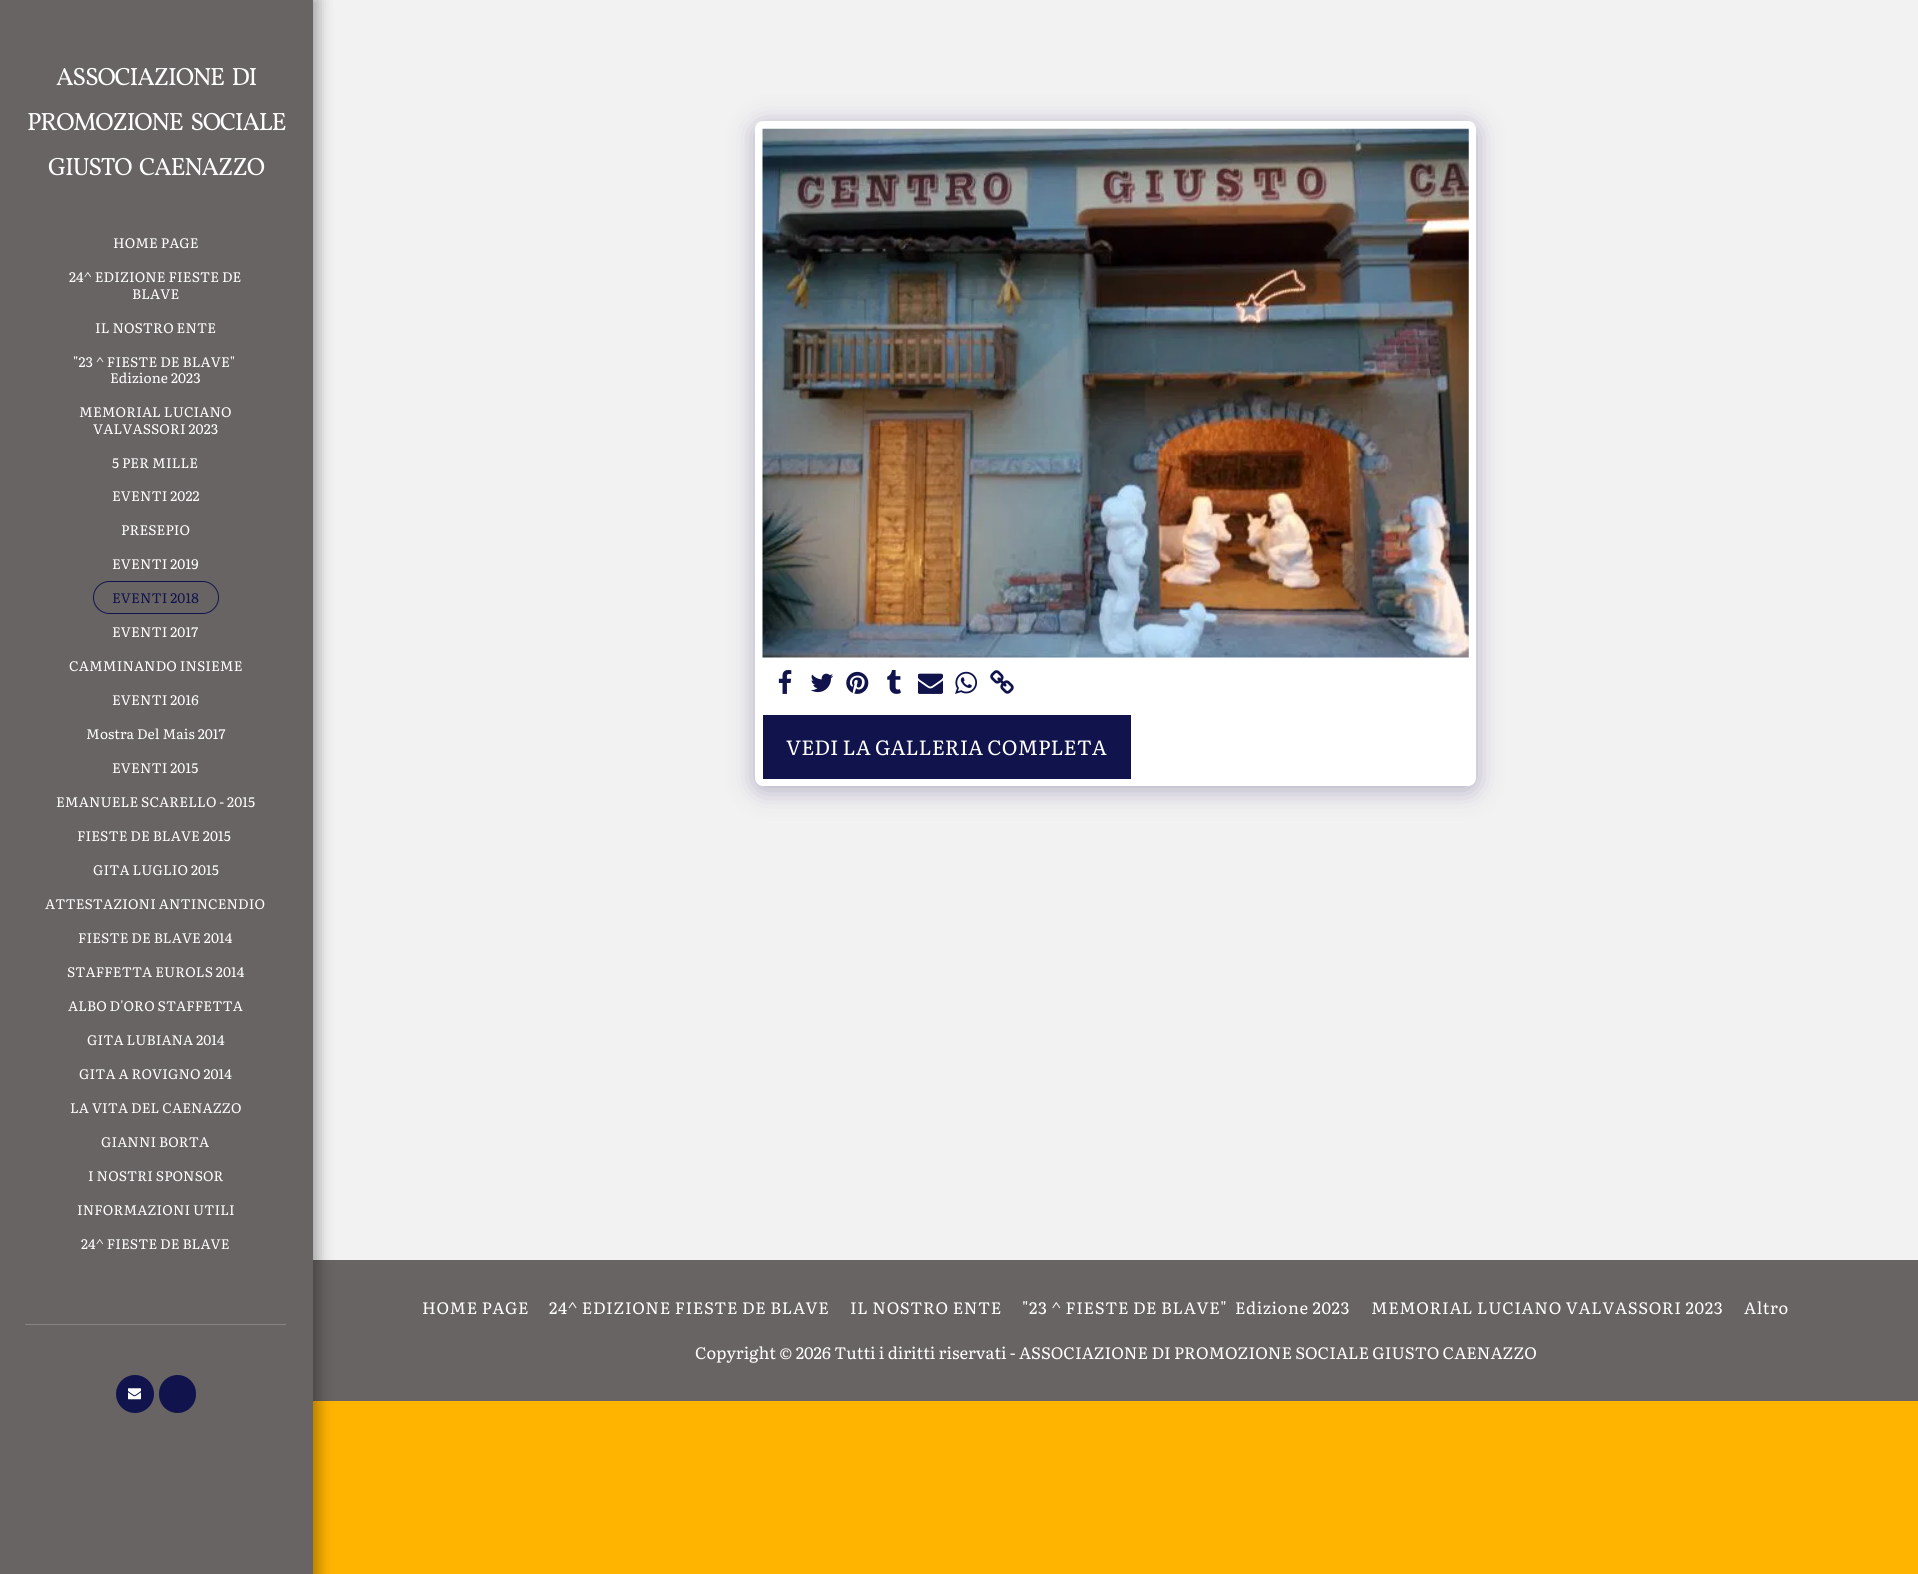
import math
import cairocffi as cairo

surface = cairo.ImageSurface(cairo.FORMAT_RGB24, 1918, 1574)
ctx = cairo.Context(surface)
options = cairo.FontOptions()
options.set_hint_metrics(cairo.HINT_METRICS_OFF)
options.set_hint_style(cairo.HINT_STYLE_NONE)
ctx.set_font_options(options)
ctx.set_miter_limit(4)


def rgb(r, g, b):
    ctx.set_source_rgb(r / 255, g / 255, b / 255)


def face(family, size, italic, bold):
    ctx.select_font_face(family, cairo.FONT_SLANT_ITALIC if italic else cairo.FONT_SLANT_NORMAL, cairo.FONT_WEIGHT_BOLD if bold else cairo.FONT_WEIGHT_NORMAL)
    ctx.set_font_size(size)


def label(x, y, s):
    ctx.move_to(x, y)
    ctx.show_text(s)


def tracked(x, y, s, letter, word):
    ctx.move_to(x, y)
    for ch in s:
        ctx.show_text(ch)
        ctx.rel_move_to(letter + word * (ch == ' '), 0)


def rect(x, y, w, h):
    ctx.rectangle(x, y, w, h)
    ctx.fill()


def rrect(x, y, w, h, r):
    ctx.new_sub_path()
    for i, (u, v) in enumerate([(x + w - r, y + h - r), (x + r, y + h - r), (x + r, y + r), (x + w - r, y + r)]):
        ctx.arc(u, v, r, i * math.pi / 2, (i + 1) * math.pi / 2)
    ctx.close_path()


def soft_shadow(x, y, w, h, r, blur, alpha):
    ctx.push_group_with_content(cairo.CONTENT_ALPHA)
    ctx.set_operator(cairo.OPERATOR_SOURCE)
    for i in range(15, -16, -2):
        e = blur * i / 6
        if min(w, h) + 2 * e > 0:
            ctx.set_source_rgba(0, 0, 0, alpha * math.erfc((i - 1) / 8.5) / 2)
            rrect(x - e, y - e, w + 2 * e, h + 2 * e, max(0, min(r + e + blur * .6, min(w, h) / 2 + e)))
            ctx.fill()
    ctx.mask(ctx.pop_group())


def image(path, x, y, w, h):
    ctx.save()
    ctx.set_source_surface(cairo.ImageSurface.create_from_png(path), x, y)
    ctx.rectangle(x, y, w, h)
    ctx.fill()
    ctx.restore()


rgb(255, 180, 0)
ctx.paint()
rgb(242, 242, 242)
rect(313, 0, 1605, 1260)
rgb(105, 100, 100)
rect(313, 1260, 1605, 141)
rgb(0, 0, 0)
soft_shadow(0, -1, 318, 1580, 0, 7.5, 0.35)
rgb(105, 100, 100)
rect(0, 0, 313, 1574)
face('Vollkorn SC', 25, 0, 0)
rgb(255, 255, 255)
tracked(56, 85, 'ASSOCIAZIONE DI', -1.25, 4)
tracked(27, 130, 'PROMOZIONE SOCIALE', -1.25, 4)
tracked(48, 175, 'GIUSTO CAENAZZO', -1.25, 4)
face('Literata', 13.75, 0, 0)
tracked(113, 248, 'HOME PAGE', 0.1, 0)
tracked(69, 282, '24^ EDIZIONE FIESTE DE', 0.1, 0)
tracked(132, 299, 'BLAVE', 0.1, 0)
tracked(95, 333, 'IL NOSTRO ENTE', 0.1, 0)
tracked(73, 367, '"23 ^ FIESTE DE BLAVE"', 0.1, 0)
tracked(110, 383, 'Edizione 2023', 0.1, 0)
tracked(79, 417, 'MEMORIAL LUCIANO', 0.1, 0)
tracked(93, 434, 'VALVASSORI 2023', 0.1, 0)
tracked(112, 468, '5 PER MILLE', 0.1, 0)
tracked(112, 501, 'EVENTI 2022', 0.1, 0)
tracked(121, 535, 'PRESEPIO', 0.1, 0)
tracked(112, 569, 'EVENTI 2019', 0.1, 0)
rrect(93.5, 581.5, 125, 32, 16)
rgb(17, 20, 76)
ctx.set_line_width(1)
ctx.stroke()
tracked(112, 603, 'EVENTI 2018', 0.1, 0)
rgb(255, 255, 255)
tracked(112, 637, 'EVENTI 2017', 0.1, 0)
tracked(69, 671, 'CAMMINANDO INSIEME', 0.1, 0)
tracked(112, 705, 'EVENTI 2016', 0.1, 0)
tracked(86, 739, 'Mostra Del Mais 2017', 0.1, 0)
tracked(112, 773, 'EVENTI 2015', 0.1, 0)
tracked(56, 807, 'EMANUELE SCARELLO - 2015', 0.1, 0)
tracked(77, 841, 'FIESTE DE BLAVE 2015', 0.1, 0)
tracked(93, 875, 'GITA LUGLIO 2015', 0.1, 0)
tracked(45, 909, 'ATTESTAZIONI ANTINCENDIO', 0.1, 0)
tracked(78, 943, 'FIESTE DE BLAVE 2014', 0.1, 0)
tracked(67, 977, 'STAFFETTA EUROLS 2014', 0.1, 0)
tracked(68, 1011, 'ALBO D\'ORO STAFFETTA', 0.1, 0)
tracked(87, 1045, 'GITA LUBIANA 2014', 0.1, 0)
tracked(79, 1079, 'GITA A ROVIGNO 2014', 0.1, 0)
tracked(70, 1113, 'LA VITA DEL CAENAZZO', 0.1, 0)
tracked(101, 1147, 'GIANNI BORTA', 0.1, 0)
tracked(88, 1181, 'I NOSTRI SPONSOR', 0.1, 0)
tracked(77, 1215, 'INFORMAZIONI UTILI', 0.1, 0)
tracked(81, 1249, '24^ FIESTE DE BLAVE', 0.1, 0)
rgb(135, 131, 131)
rect(25, 1324, 261, 1)
rgb(17, 20, 76)
ctx.new_path()
ctx.arc(135, 1394, 19, 0, 2 * math.pi)
ctx.fill()
image('image0.png', 128, 1388, 13, 12)
rrect(159, 1375, 37, 38, 18.5)
ctx.fill()
rgb(77, 63, 122)
soft_shadow(755, 125, 721, 665, 8, 12.5, 0.4)
rgb(255, 255, 255)
rrect(755, 121, 721, 665, 8)
ctx.fill()
image('image1.png', 762, 128, 707, 530)
image('image2.png', 778, 670, 14, 24)
image('image3.png', 810, 673, 24, 20)
image('image4.png', 846, 671, 23, 23)
image('image5.png', 887, 670, 14, 24)
image('image6.png', 918, 673, 25, 21)
image('image7.png', 955, 671, 23, 23)
image('image8.png', 990, 670, 24, 24)
rgb(17, 20, 76)
rect(763, 715, 368, 64)
face('Literata', 20.6, 0, 0)
rgb(255, 255, 255)
label(786, 755, 'VEDI LA GALLERIA COMPLETA')
face('Literata', 16.5, 0, 0)
tracked(422, 1314, 'HOME PAGE', 0.6, 0)
tracked(549, 1314, '24^ EDIZIONE FIESTE DE BLAVE', 0.6, 0)
tracked(850, 1314, 'IL NOSTRO ENTE', 0.6, 0)
tracked(1022, 1314, '"23 ^ FIESTE DE BLAVE"  Edizione 2023', 0.6, 0)
tracked(1371, 1314, 'MEMORIAL LUCIANO VALVASSORI 2023', 0.6, 0)
tracked(1744, 1314, 'Altro', 0.6, 0)
label(695, 1359, 'Copyright © 2026 Tutti i diritti riservati -')
label(1019, 1359, 'ASSOCIAZIONE DI PROMOZIONE SOCIALE GIUSTO CAENAZZO')
surface.write_to_png('render.png')
